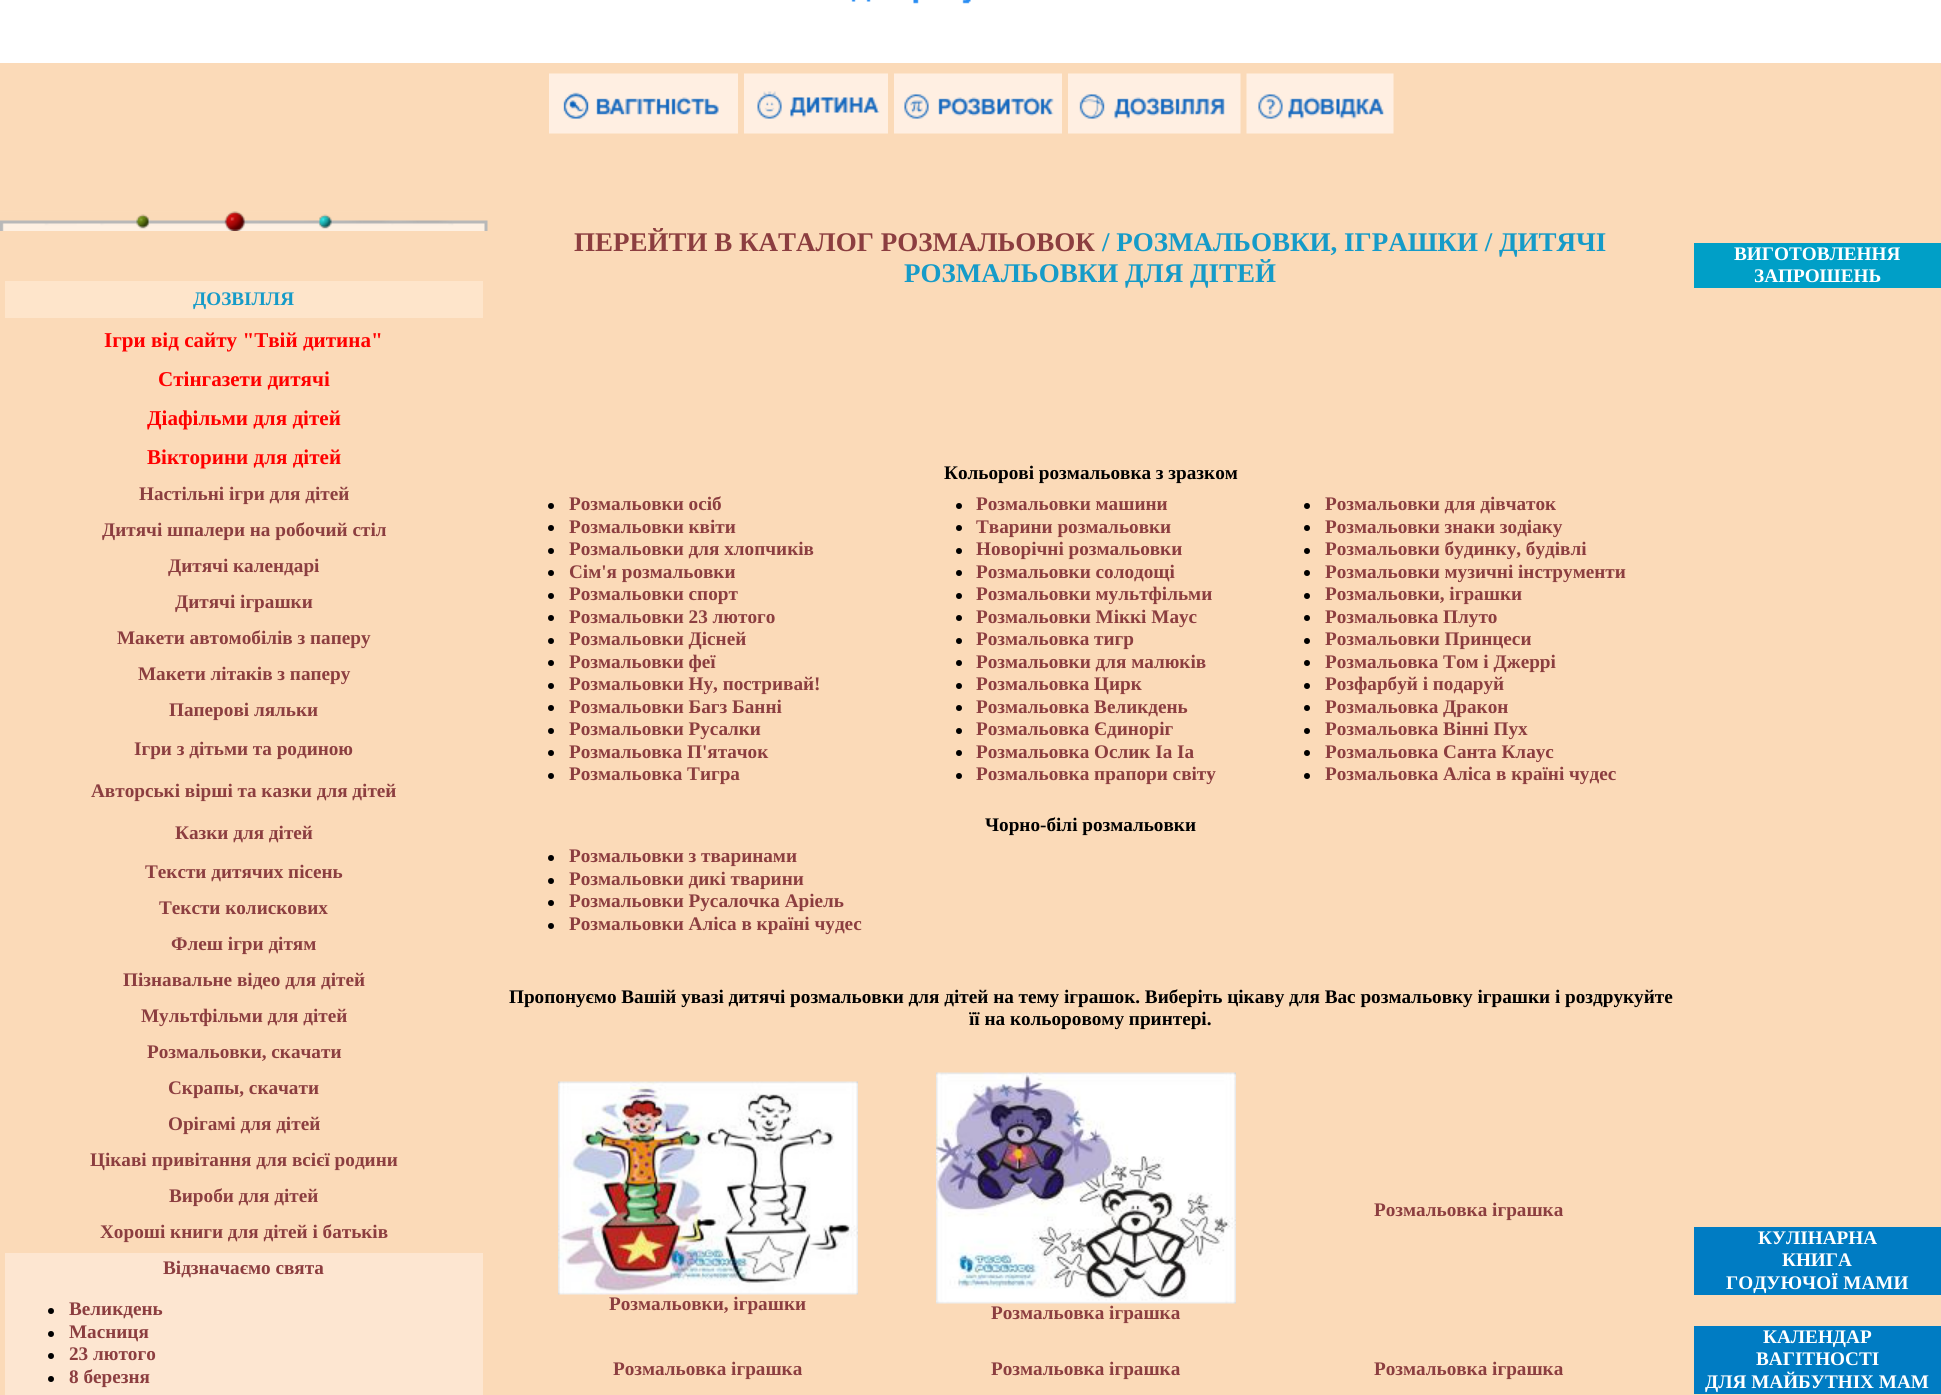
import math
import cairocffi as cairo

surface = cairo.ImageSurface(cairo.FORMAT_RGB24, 1941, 1395)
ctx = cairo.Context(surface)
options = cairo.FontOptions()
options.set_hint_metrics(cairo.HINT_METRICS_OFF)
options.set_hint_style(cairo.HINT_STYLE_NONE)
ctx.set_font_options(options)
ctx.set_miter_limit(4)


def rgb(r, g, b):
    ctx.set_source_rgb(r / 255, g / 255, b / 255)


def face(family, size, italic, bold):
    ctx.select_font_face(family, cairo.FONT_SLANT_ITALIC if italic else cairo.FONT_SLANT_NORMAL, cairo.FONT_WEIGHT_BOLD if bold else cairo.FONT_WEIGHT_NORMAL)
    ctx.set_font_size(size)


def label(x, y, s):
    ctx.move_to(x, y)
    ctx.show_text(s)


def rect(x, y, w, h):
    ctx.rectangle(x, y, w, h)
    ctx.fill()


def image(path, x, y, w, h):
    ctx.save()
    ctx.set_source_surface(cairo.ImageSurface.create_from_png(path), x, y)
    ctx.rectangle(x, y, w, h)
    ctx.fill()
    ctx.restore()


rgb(251, 218, 184)
ctx.paint()
rgb(255, 255, 255)
rect(0, 0, 1941, 63)
image('image0.png', 851, 0, 120, 4)
image('image1.png', 549, 73, 189, 61)
image('image2.png', 744, 73, 144, 61)
image('image3.png', 894, 73, 168, 61)
image('image4.png', 1068, 73, 173, 61)
image('image5.png', 1246, 73, 148, 61)
image('image6.png', 0, 211, 488, 20)
rgb(254, 229, 203)
rect(5, 281, 478, 37)
face('Liberation Serif', 19.2, 0, 1)
rgb(22, 155, 200)
label(193, 305, 'ДОЗВІЛЛЯ')
face('Liberation Serif', 21.1, 0, 1)
rgb(255, 0, 0)
label(104, 347, 'Ігри від сайту "Твій дитина"')
label(158, 386, 'Стінгазети дитячі')
label(147, 425, 'Діафільми для дітей')
label(147, 464, 'Вікторини для дітей')
face('Liberation Serif', 19.2, 0, 1)
rgb(140, 62, 64)
label(139, 500, 'Настільні ігри для дітей')
label(102, 536, 'Дитячі шпалери на робочий стіл')
label(168, 572, 'Дитячі календарі')
label(175, 608, 'Дитячі іграшки')
label(117, 644, 'Макети автомобілів з паперу')
label(138, 680, 'Макети літаків з паперу')
label(169, 716, 'Паперові ляльки')
label(134, 755, 'Ігри з дітьми та родиною')
label(91, 797, 'Авторські вірші та казки для дітей')
label(175, 839, 'Казки для дітей')
label(145, 878, 'Тексти дитячих пісень')
label(159, 914, 'Тексти колискових')
label(171, 950, 'Флеш ігри дітям')
label(123, 986, 'Пізнавальне відео для дітей')
label(141, 1022, 'Мультфільми для дітей')
label(147, 1058, 'Розмальовки, скачати')
label(168, 1094, 'Скрапы, скачати')
label(168, 1130, 'Орігамі для дітей')
label(90, 1166, 'Цікаві привітання для всієї родини')
label(169, 1202, 'Вироби для дітей')
label(100, 1238, 'Хороші книги для дітей і батьків')
rgb(253, 230, 209)
rect(5, 1253, 478, 142)
rgb(140, 62, 64)
label(163, 1274, 'Відзначаємо свята')
rgb(0, 0, 0)
ctx.new_path()
ctx.arc(51, 1311, 3, 0, 2 * math.pi)
ctx.fill()
rgb(140, 62, 64)
label(69, 1315, 'Великдень')
rgb(0, 0, 0)
ctx.new_path()
ctx.arc(51, 1334, 3, 0, 2 * math.pi)
ctx.fill()
rgb(140, 62, 64)
label(69, 1338, 'Масниця')
rgb(0, 0, 0)
ctx.new_path()
ctx.arc(51, 1356, 3, 0, 2 * math.pi)
ctx.fill()
rgb(140, 62, 64)
label(69, 1360, '23 лютого')
rgb(0, 0, 0)
ctx.new_path()
ctx.arc(51, 1379, 3, 0, 2 * math.pi)
ctx.fill()
rgb(140, 62, 64)
label(69, 1383, '8 березня')
face('Liberation Serif', 27, 0, 1)
label(574, 251, 'ПЕРЕЙТИ В КАТАЛОГ РОЗМАЛЬОВОК')
rgb(22, 155, 200)
label(1102, 251, '/ РОЗМАЛЬОВКИ, ІГРАШКИ / ДИТЯЧІ')
label(904, 282, 'РОЗМАЛЬОВКИ ДЛЯ ДІТЕЙ')
face('Liberation Serif', 19.2, 0, 1)
rgb(0, 0, 0)
label(944, 479, 'Кольорові розмальовка з зразком')
ctx.new_path()
ctx.arc(551, 506, 3, 0, 2 * math.pi)
ctx.fill()
rgb(140, 62, 64)
label(569, 510, 'Розмальовки осіб')
rgb(0, 0, 0)
ctx.new_path()
ctx.arc(551, 528, 3, 0, 2 * math.pi)
ctx.fill()
rgb(140, 62, 64)
label(569, 533, 'Розмальовки квіти')
rgb(0, 0, 0)
ctx.new_path()
ctx.arc(551, 551, 3, 0, 2 * math.pi)
ctx.fill()
rgb(140, 62, 64)
label(569, 555, 'Розмальовки для хлопчиків')
rgb(0, 0, 0)
ctx.new_path()
ctx.arc(551, 573, 3, 0, 2 * math.pi)
ctx.fill()
rgb(140, 62, 64)
label(569, 578, 'Сім\'я розмальовки')
rgb(0, 0, 0)
ctx.new_path()
ctx.arc(551, 596, 3, 0, 2 * math.pi)
ctx.fill()
rgb(140, 62, 64)
label(569, 600, 'Розмальовки спорт')
rgb(0, 0, 0)
ctx.new_path()
ctx.arc(551, 618, 3, 0, 2 * math.pi)
ctx.fill()
rgb(140, 62, 64)
label(569, 623, 'Розмальовки 23 лютого')
rgb(0, 0, 0)
ctx.new_path()
ctx.arc(551, 641, 3, 0, 2 * math.pi)
ctx.fill()
rgb(140, 62, 64)
label(569, 645, 'Розмальовки Дісней')
rgb(0, 0, 0)
ctx.new_path()
ctx.arc(551, 663, 3, 0, 2 * math.pi)
ctx.fill()
rgb(140, 62, 64)
label(569, 668, 'Розмальовки феї')
rgb(0, 0, 0)
ctx.new_path()
ctx.arc(551, 686, 3, 0, 2 * math.pi)
ctx.fill()
rgb(140, 62, 64)
label(569, 690, 'Розмальовки Ну, постривай!')
rgb(0, 0, 0)
ctx.new_path()
ctx.arc(551, 708, 3, 0, 2 * math.pi)
ctx.fill()
rgb(140, 62, 64)
label(569, 713, 'Розмальовки Багз Банні')
rgb(0, 0, 0)
ctx.new_path()
ctx.arc(551, 731, 3, 0, 2 * math.pi)
ctx.fill()
rgb(140, 62, 64)
label(569, 735, 'Розмальовки Русалки')
rgb(0, 0, 0)
ctx.new_path()
ctx.arc(551, 753, 3, 0, 2 * math.pi)
ctx.fill()
rgb(140, 62, 64)
label(569, 758, 'Розмальовка П\'ятачок')
rgb(0, 0, 0)
ctx.new_path()
ctx.arc(551, 776, 3, 0, 2 * math.pi)
ctx.fill()
rgb(140, 62, 64)
label(569, 780, 'Розмальовка Тигра')
rgb(0, 0, 0)
ctx.new_path()
ctx.arc(959, 506, 3, 0, 2 * math.pi)
ctx.fill()
rgb(140, 62, 64)
label(976, 510, 'Розмальовки машини')
rgb(0, 0, 0)
ctx.new_path()
ctx.arc(959, 528, 3, 0, 2 * math.pi)
ctx.fill()
rgb(140, 62, 64)
label(976, 533, 'Тварини розмальовки')
rgb(0, 0, 0)
ctx.new_path()
ctx.arc(959, 551, 3, 0, 2 * math.pi)
ctx.fill()
rgb(140, 62, 64)
label(976, 555, 'Новорічні розмальовки')
rgb(0, 0, 0)
ctx.new_path()
ctx.arc(959, 573, 3, 0, 2 * math.pi)
ctx.fill()
rgb(140, 62, 64)
label(976, 578, 'Розмальовки солодощі')
rgb(0, 0, 0)
ctx.new_path()
ctx.arc(959, 596, 3, 0, 2 * math.pi)
ctx.fill()
rgb(140, 62, 64)
label(976, 600, 'Розмальовки мультфільми')
rgb(0, 0, 0)
ctx.new_path()
ctx.arc(959, 618, 3, 0, 2 * math.pi)
ctx.fill()
rgb(140, 62, 64)
label(976, 623, 'Розмальовки Міккі Маус')
rgb(0, 0, 0)
ctx.new_path()
ctx.arc(959, 641, 3, 0, 2 * math.pi)
ctx.fill()
rgb(140, 62, 64)
label(976, 645, 'Розмальовка тигр')
rgb(0, 0, 0)
ctx.new_path()
ctx.arc(959, 663, 3, 0, 2 * math.pi)
ctx.fill()
rgb(140, 62, 64)
label(976, 668, 'Розмальовки для малюків')
rgb(0, 0, 0)
ctx.new_path()
ctx.arc(959, 686, 3, 0, 2 * math.pi)
ctx.fill()
rgb(140, 62, 64)
label(976, 690, 'Розмальовка Цирк')
rgb(0, 0, 0)
ctx.new_path()
ctx.arc(959, 708, 3, 0, 2 * math.pi)
ctx.fill()
rgb(140, 62, 64)
label(976, 713, 'Розмальовка Великдень')
rgb(0, 0, 0)
ctx.new_path()
ctx.arc(959, 731, 3, 0, 2 * math.pi)
ctx.fill()
rgb(140, 62, 64)
label(976, 735, 'Розмальовка Єдиноріг')
rgb(0, 0, 0)
ctx.new_path()
ctx.arc(959, 753, 3, 0, 2 * math.pi)
ctx.fill()
rgb(140, 62, 64)
label(976, 758, 'Розмальовка Ослик Іа Іа')
rgb(0, 0, 0)
ctx.new_path()
ctx.arc(959, 776, 3, 0, 2 * math.pi)
ctx.fill()
rgb(140, 62, 64)
label(976, 780, 'Розмальовка прапори світу')
rgb(0, 0, 0)
ctx.new_path()
ctx.arc(1307, 506, 3, 0, 2 * math.pi)
ctx.fill()
rgb(140, 62, 64)
label(1325, 510, 'Розмальовки для дівчаток')
rgb(0, 0, 0)
ctx.new_path()
ctx.arc(1307, 528, 3, 0, 2 * math.pi)
ctx.fill()
rgb(140, 62, 64)
label(1325, 533, 'Розмальовки знаки зодіаку')
rgb(0, 0, 0)
ctx.new_path()
ctx.arc(1307, 551, 3, 0, 2 * math.pi)
ctx.fill()
rgb(140, 62, 64)
label(1325, 555, 'Розмальовки будинку, будівлі')
rgb(0, 0, 0)
ctx.new_path()
ctx.arc(1307, 573, 3, 0, 2 * math.pi)
ctx.fill()
rgb(140, 62, 64)
label(1325, 578, 'Розмальовки музичні інструменти')
rgb(0, 0, 0)
ctx.new_path()
ctx.arc(1307, 596, 3, 0, 2 * math.pi)
ctx.fill()
rgb(140, 62, 64)
label(1325, 600, 'Розмальовки, іграшки')
rgb(0, 0, 0)
ctx.new_path()
ctx.arc(1307, 618, 3, 0, 2 * math.pi)
ctx.fill()
rgb(140, 62, 64)
label(1325, 623, 'Розмальовка Плуто')
rgb(0, 0, 0)
ctx.new_path()
ctx.arc(1307, 641, 3, 0, 2 * math.pi)
ctx.fill()
rgb(140, 62, 64)
label(1325, 645, 'Розмальовки Принцеси')
rgb(0, 0, 0)
ctx.new_path()
ctx.arc(1307, 663, 3, 0, 2 * math.pi)
ctx.fill()
rgb(140, 62, 64)
label(1325, 668, 'Розмальовка Том і Джеррі')
rgb(0, 0, 0)
ctx.new_path()
ctx.arc(1307, 686, 3, 0, 2 * math.pi)
ctx.fill()
rgb(140, 62, 64)
label(1325, 690, 'Розфарбуй і подаруй')
rgb(0, 0, 0)
ctx.new_path()
ctx.arc(1307, 708, 3, 0, 2 * math.pi)
ctx.fill()
rgb(140, 62, 64)
label(1325, 713, 'Розмальовка Дракон')
rgb(0, 0, 0)
ctx.new_path()
ctx.arc(1307, 731, 3, 0, 2 * math.pi)
ctx.fill()
rgb(140, 62, 64)
label(1325, 735, 'Розмальовка Вінні Пух')
rgb(0, 0, 0)
ctx.new_path()
ctx.arc(1307, 753, 3, 0, 2 * math.pi)
ctx.fill()
rgb(140, 62, 64)
label(1325, 758, 'Розмальовка Санта Клаус')
rgb(0, 0, 0)
ctx.new_path()
ctx.arc(1307, 776, 3, 0, 2 * math.pi)
ctx.fill()
rgb(140, 62, 64)
label(1325, 780, 'Розмальовка Аліса в країні чудес')
rgb(0, 0, 0)
label(985, 831, 'Чорно-білі розмальовки')
ctx.new_path()
ctx.arc(551, 858, 3, 0, 2 * math.pi)
ctx.fill()
rgb(140, 62, 64)
label(569, 862, 'Розмальовки з тваринами')
rgb(0, 0, 0)
ctx.new_path()
ctx.arc(551, 881, 3, 0, 2 * math.pi)
ctx.fill()
rgb(140, 62, 64)
label(569, 885, 'Розмальовки дикі тварини')
rgb(0, 0, 0)
ctx.new_path()
ctx.arc(551, 903, 3, 0, 2 * math.pi)
ctx.fill()
rgb(140, 62, 64)
label(569, 907, 'Розмальовки Русалочка Аріель')
rgb(0, 0, 0)
ctx.new_path()
ctx.arc(551, 926, 3, 0, 2 * math.pi)
ctx.fill()
rgb(140, 62, 64)
label(569, 930, 'Розмальовки Аліса в країні чудес')
rgb(0, 0, 0)
label(509, 1003, 'Пропонуємо Вашій увазі дитячі розмальовки для дітей на тему іграшок. Виберіть цікаву для Вас розмальовку іграшки і роздрукуйте')
label(969, 1025, 'її на кольоровому принтері.')
rgb(140, 62, 64)
label(1374, 1216, 'Розмальовка іграшка')
image('image7.png', 558, 1081, 300, 214)
label(609, 1310, 'Розмальовки, іграшки')
image('image8.png', 936, 1072, 300, 232)
label(991, 1319, 'Розмальовка іграшка')
label(613, 1375, 'Розмальовка іграшка')
label(991, 1375, 'Розмальовка іграшка')
label(1374, 1375, 'Розмальовка іграшка')
rgb(0, 159, 199)
rect(1694, 243, 247, 45)
rgb(255, 255, 255)
label(1734, 260, 'ВИГОТОВЛЕННЯ')
label(1754, 282, 'ЗАПРОШЕНЬ')
rgb(0, 124, 195)
rect(1694, 1227, 247, 68)
rgb(255, 255, 255)
label(1758, 1244, 'КУЛІНАРНА')
label(1782, 1266, 'КНИГА')
label(1726, 1289, 'ГОДУЮЧОЇ МАМИ')
rgb(0, 124, 195)
rect(1694, 1326, 247, 68)
rgb(255, 255, 255)
label(1763, 1343, 'КАЛЕНДАР')
label(1756, 1365, 'ВАГІТНОСТІ')
label(1705, 1388, 'ДЛЯ МАЙБУТНІХ МАМ')
surface.write_to_png('render.png')
